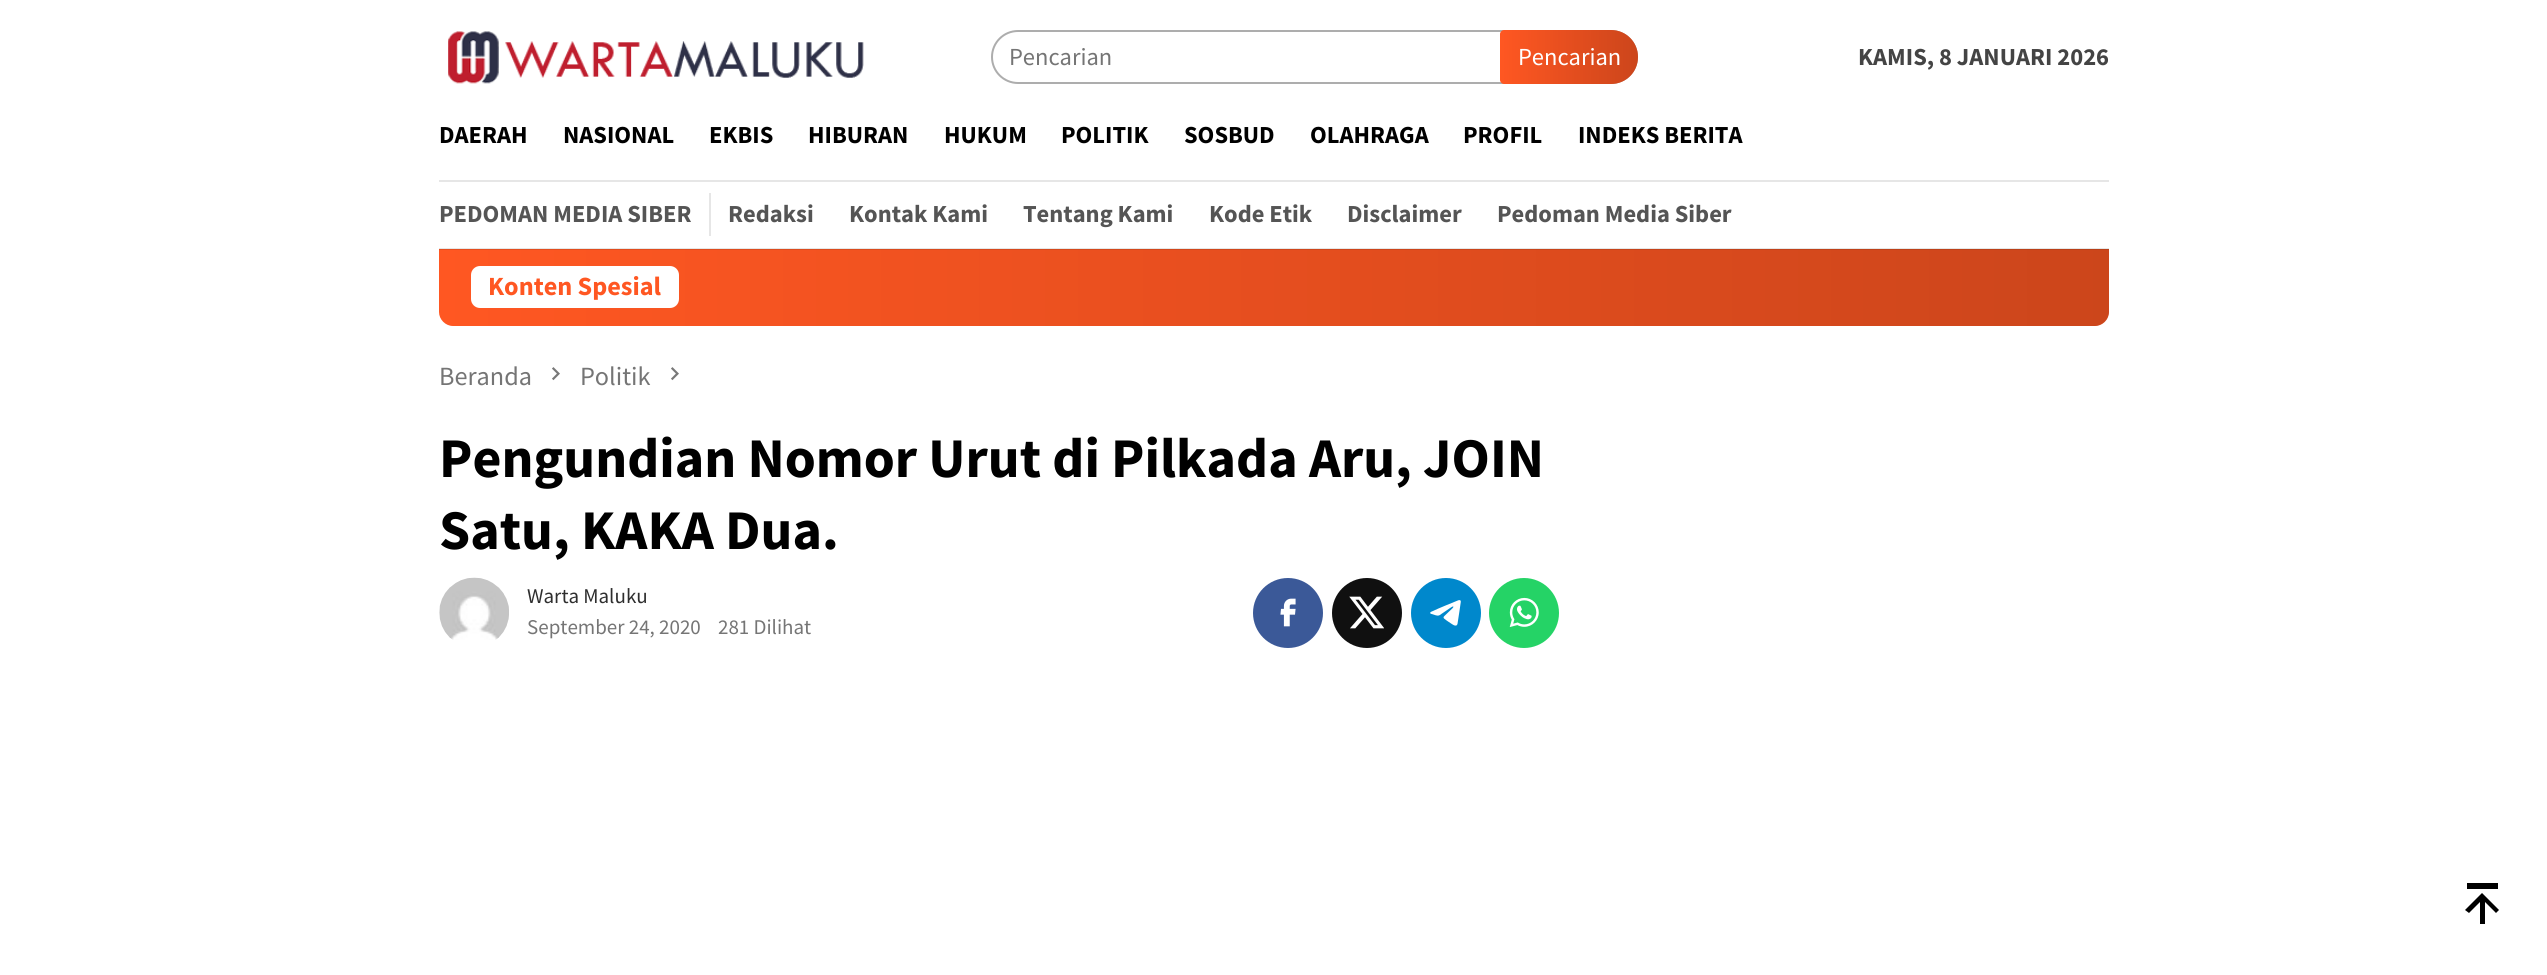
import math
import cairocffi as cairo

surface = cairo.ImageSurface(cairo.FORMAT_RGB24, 2547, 975)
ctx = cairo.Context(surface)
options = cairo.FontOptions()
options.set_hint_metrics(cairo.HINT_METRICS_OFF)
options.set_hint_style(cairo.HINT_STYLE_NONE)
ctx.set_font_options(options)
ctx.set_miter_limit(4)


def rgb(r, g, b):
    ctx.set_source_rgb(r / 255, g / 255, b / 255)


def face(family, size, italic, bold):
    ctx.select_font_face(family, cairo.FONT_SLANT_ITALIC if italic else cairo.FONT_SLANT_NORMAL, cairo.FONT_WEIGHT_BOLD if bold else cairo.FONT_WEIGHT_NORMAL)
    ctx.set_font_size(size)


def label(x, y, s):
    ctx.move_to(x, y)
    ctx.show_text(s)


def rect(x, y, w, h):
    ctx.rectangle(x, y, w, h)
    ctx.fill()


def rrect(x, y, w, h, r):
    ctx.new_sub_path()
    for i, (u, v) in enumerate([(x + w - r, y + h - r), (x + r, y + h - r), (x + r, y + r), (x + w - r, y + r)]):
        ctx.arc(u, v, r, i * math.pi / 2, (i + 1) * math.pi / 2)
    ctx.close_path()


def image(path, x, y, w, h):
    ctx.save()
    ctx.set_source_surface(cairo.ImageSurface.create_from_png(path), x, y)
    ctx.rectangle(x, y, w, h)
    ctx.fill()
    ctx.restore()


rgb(255, 255, 255)
ctx.paint()
image('image0.png', 448, 31, 416, 53)
rrect(992, 31, 645, 52, 26)
rgb(173, 173, 173)
ctx.stroke()
face('Source Sans Pro', 24.5, 0, 0)
rgb(117, 117, 117)
label(1009, 65, 'Pencarian')
rgb(255, 87, 34)
ctx.new_path()
ctx.move_to(1504, 30)
ctx.line_to(1611, 30)
ctx.curve_to(1626, 30, 1638, 42, 1638, 57)
ctx.curve_to(1638, 72, 1626, 84, 1611, 84)
ctx.line_to(1504, 84)
ctx.curve_to(1502, 84, 1500, 82, 1500, 80)
ctx.line_to(1500, 34)
ctx.curve_to(1500, 32, 1502, 30, 1504, 30)
ctx.close_path()
ctx.fill()
gradient = cairo.LinearGradient(1500, 57, 1638, 57)
gradient.add_color_stop_rgba(0, 0, 0, 0, 0)
gradient.add_color_stop_rgba(1, 0, 0, 0, 0.2)
ctx.set_source(gradient)
ctx.new_path()
ctx.move_to(1504, 30)
ctx.line_to(1611, 30)
ctx.curve_to(1626, 30, 1638, 42, 1638, 57)
ctx.curve_to(1638, 72, 1626, 84, 1611, 84)
ctx.line_to(1504, 84)
ctx.curve_to(1502, 84, 1500, 82, 1500, 80)
ctx.line_to(1500, 34)
ctx.curve_to(1500, 32, 1502, 30, 1504, 30)
ctx.close_path()
ctx.fill()
rgb(255, 255, 255)
label(1518, 65, 'Pencarian')
face('Source Sans Pro', 24.5, 0, 1)
rgb(68, 68, 68)
label(1858, 65, 'KAMIS, 8 JANUARI 2026')
rgb(230, 230, 230)
ctx.new_path()
ctx.move_to(439, 93)
ctx.line_to(439, 182)
ctx.line_to(2109, 182)
ctx.line_to(2109, 93)
ctx.line_to(2109, 180)
ctx.line_to(439, 180)
ctx.close_path()
ctx.fill()
rgb(0, 0, 0)
label(439, 143, 'DAERAH')
label(563, 143, 'NASIONAL')
label(709, 143, 'EKBIS')
label(808, 143, 'HIBURAN')
label(944, 143, 'HUKUM')
label(1061, 143, 'POLITIK')
label(1184, 143, 'SOSBUD')
label(1310, 143, 'OLAHRAGA')
label(1463, 143, 'PROFIL')
label(1578, 143, 'INDEKS BERITA')
rgb(255, 87, 34)
ctx.new_path()
ctx.move_to(439, 249)
ctx.line_to(2109, 249)
ctx.line_to(2109, 312)
ctx.curve_to(2109, 319.5, 2102.5, 326, 2095, 326)
ctx.line_to(453, 326)
ctx.curve_to(445.5, 326, 439, 319.5, 439, 312)
ctx.close_path()
ctx.fill()
gradient = cairo.LinearGradient(439, 287, 2109, 287)
gradient.add_color_stop_rgba(0, 0, 0, 0, 0)
gradient.add_color_stop_rgba(1, 0, 0, 0, 0.2)
ctx.set_source(gradient)
ctx.new_path()
ctx.move_to(439, 249)
ctx.line_to(2109, 249)
ctx.line_to(2109, 312)
ctx.curve_to(2109, 319.5, 2102.5, 326, 2095, 326)
ctx.line_to(453, 326)
ctx.curve_to(445.5, 326, 439, 319.5, 439, 312)
ctx.close_path()
ctx.fill()
ctx.set_source_rgba(0, 0, 0, 0.1)
ctx.new_path()
ctx.move_to(439, 182)
ctx.line_to(439, 250)
ctx.line_to(2109, 250)
ctx.line_to(2109, 182)
ctx.line_to(2109, 248)
ctx.line_to(439, 248)
ctx.close_path()
ctx.fill()
rgb(230, 230, 230)
rect(709, 193, 2, 43)
rgb(85, 85, 85)
label(439, 222, 'PEDOMAN MEDIA SIBER')
label(728, 222, 'Redaksi')
label(849, 222, 'Kontak Kami')
label(1023, 222, 'Tentang Kami')
label(1209, 222, 'Kode Etik')
label(1347, 222, 'Disclaimer')
label(1497, 222, 'Pedoman Media Siber')
rgb(255, 255, 255)
rrect(471, 266, 208, 42, 9)
ctx.fill()
face('Source Sans Pro', 26.25, 0, 1)
rgb(255, 87, 34)
label(488, 295, 'Konten Spesial')
face('Source Sans Pro', 26.25, 0, 0)
rgb(117, 117, 117)
label(439, 385, 'Beranda')
image('image1.png', 552, 367, 8, 14)
label(580, 385, 'Politik')
image('image1.png', 671, 367, 8, 14)
face('Source Sans Pro', 56, 0, 1)
rgb(0, 0, 0)
label(439, 477, 'Pengundian Nomor Urut di Pilkada Aru, JOIN')
label(439, 549, 'Satu, KAKA Dua.')
image('image2.png', 439, 577, 70, 63)
face('Source Sans Pro', 21, 0, 0)
rgb(46, 46, 46)
label(527, 603, 'Warta Maluku')
rgb(117, 117, 117)
label(527, 634, 'September 24, 2020')
label(718, 634, '281 Dilihat')
rgb(59, 89, 152)
ctx.new_path()
ctx.arc(1288, 613, 35, 0, 2 * math.pi)
ctx.fill()
image('image3.png', 1280, 598, 16, 29)
rgb(16, 16, 16)
ctx.arc(1367, 613, 35, 0, 2 * math.pi)
ctx.fill()
image('image4.png', 1349, 596, 35, 33)
rgb(0, 136, 204)
ctx.arc(1446, 613, 35, 0, 2 * math.pi)
ctx.fill()
image('image5.png', 1430, 600, 31, 26)
rgb(37, 211, 102)
ctx.arc(1524, 613, 35, 0, 2 * math.pi)
ctx.fill()
image('image6.png', 1509, 597, 30, 30)
rgb(0, 0, 0)
ctx.new_path()
ctx.move_to(2467, 883)
ctx.line_to(2498, 883)
ctx.line_to(2498, 889)
ctx.line_to(2467, 889)
ctx.close_path()
ctx.move_to(2469, 913)
ctx.line_to(2480, 902)
ctx.line_to(2480, 924)
ctx.line_to(2485, 924)
ctx.line_to(2485, 902)
ctx.line_to(2496, 913)
ctx.line_to(2499, 910)
ctx.line_to(2482, 893)
ctx.line_to(2465, 910)
ctx.close_path()
ctx.fill()
surface.write_to_png('render.png')
